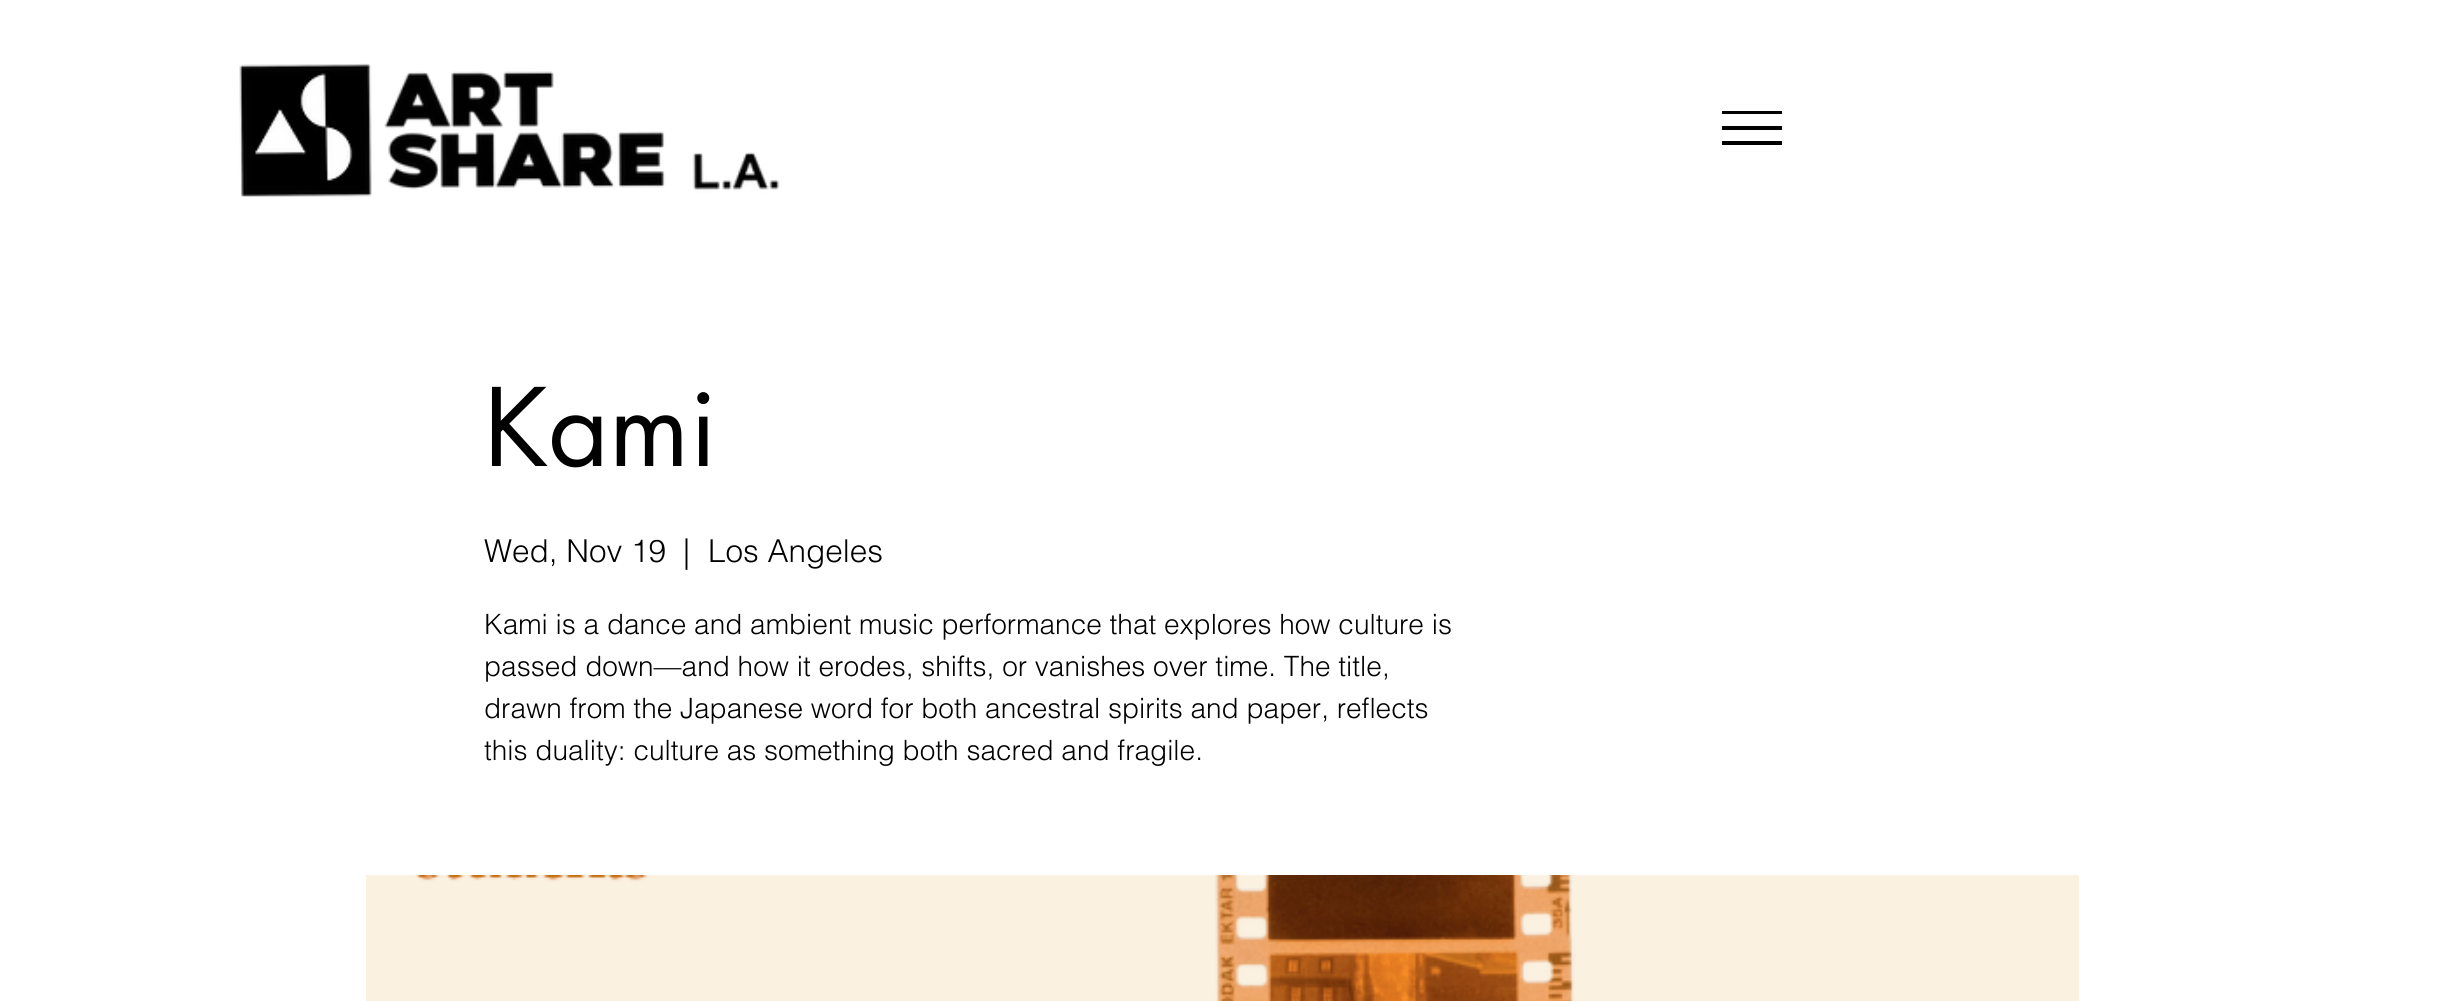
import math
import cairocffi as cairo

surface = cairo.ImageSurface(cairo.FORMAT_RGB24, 2442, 1001)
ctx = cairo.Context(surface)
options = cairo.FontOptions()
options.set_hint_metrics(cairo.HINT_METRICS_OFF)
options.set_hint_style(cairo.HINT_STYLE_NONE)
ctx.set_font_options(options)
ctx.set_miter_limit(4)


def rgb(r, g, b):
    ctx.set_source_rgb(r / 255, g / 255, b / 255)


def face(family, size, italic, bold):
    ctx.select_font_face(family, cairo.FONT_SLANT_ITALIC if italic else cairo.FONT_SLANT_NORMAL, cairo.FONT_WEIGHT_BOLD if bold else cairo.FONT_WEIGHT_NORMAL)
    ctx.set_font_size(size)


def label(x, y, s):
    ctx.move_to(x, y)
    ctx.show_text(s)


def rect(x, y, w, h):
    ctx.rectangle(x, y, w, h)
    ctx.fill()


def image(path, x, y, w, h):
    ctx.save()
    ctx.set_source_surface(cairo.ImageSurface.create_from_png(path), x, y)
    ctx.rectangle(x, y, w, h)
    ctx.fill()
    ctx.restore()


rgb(255, 255, 255)
ctx.paint()
image('image0.png', 239, 63, 541, 134)
rgb(0, 0, 0)
rect(1722, 111, 60, 3)
rect(1722, 126, 60, 4)
rect(1722, 141, 60, 4)
face('futura', 105, 0, 0)
label(484, 466, 'Kami')
face('helvetica Light', 31.5, 0, 0)
label(484, 562, 'Wed, Nov 19')
label(683, 562, '|')
label(708, 562, 'Los Angeles')
face('helvetica Light', 28, 0, 0)
label(484, 634, 'Kami is a dance and ambient music performance that explores how culture is')
label(484, 676, 'passed down—and how it erodes, shifts, or vanishes over time. The title,')
label(484, 718, 'drawn from the Japanese word for both ancestral spirits and paper, reflects')
label(484, 760, 'this duality: culture as something both sacred and fragile.')
image('image1.png', 366, 875, 1713, 126)
surface.write_to_png('render.png')
